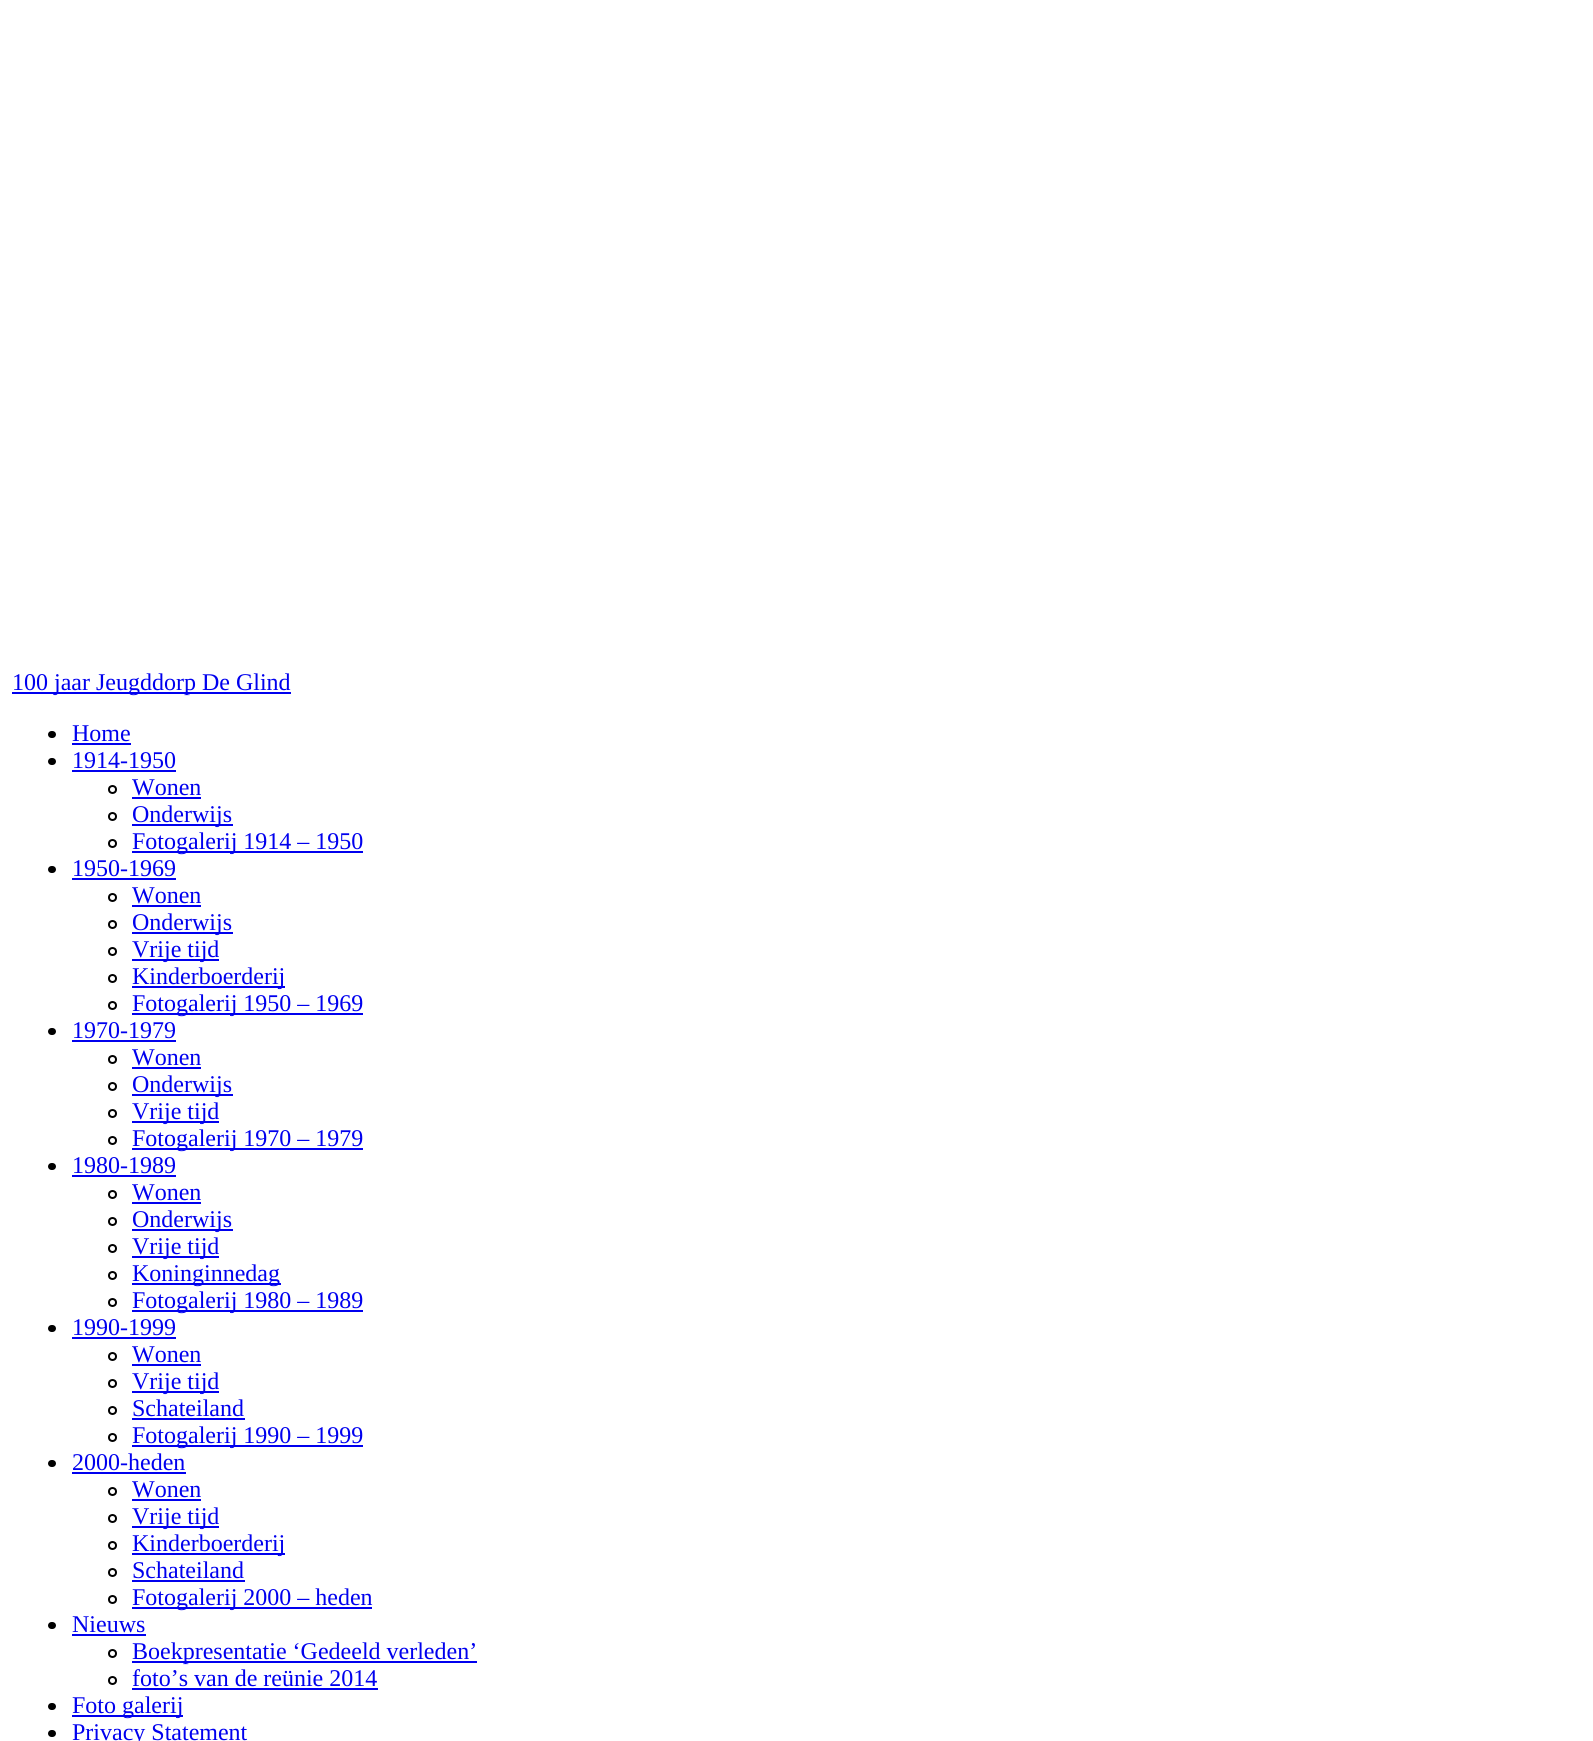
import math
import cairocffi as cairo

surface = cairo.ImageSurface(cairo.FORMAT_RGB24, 1593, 1741)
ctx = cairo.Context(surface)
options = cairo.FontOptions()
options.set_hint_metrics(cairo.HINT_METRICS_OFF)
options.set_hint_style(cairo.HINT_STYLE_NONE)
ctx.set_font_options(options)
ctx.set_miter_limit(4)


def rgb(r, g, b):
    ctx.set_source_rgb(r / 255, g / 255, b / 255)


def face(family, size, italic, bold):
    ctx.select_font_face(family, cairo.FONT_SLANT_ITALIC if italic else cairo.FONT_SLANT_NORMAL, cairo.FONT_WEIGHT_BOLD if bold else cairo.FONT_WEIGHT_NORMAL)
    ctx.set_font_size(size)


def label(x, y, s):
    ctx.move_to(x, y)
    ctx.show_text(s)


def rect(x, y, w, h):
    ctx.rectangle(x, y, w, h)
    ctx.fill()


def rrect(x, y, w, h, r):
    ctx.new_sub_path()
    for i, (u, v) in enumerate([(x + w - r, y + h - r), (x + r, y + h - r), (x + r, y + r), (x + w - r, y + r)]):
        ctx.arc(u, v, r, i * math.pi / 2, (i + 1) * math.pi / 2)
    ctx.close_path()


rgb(255, 255, 255)
ctx.paint()
rgb(0, 0, 238)
rect(12, 692, 279, 2)
face('Liberation Serif', 24, 0, 0)
label(12, 690, '100 jaar Jeugddorp De Glind')
rgb(0, 0, 0)
rrect(48, 731, 8, 7, 3.5)
ctx.fill()
rgb(0, 0, 238)
label(72, 741, 'Home')
rect(72, 743, 59, 2)
rgb(0, 0, 0)
rrect(48, 758, 8, 7, 3.5)
ctx.fill()
rgb(0, 0, 238)
label(72, 768, '1914-1950')
rect(72, 770, 104, 2)
ctx.new_path()
ctx.arc(112.5, 789.5, 3.5, 0, 2 * math.pi)
rgb(0, 0, 0)
ctx.stroke()
rgb(0, 0, 238)
label(132, 795, 'Wonen')
rect(132, 797, 69, 2)
ctx.new_path()
ctx.arc(112.5, 816.5, 3.5, 0, 2 * math.pi)
rgb(0, 0, 0)
ctx.stroke()
rgb(0, 0, 238)
rect(132, 824, 101, 2)
label(132, 822, 'Onderwijs')
ctx.new_path()
ctx.arc(112.5, 843.5, 3.5, 0, 2 * math.pi)
rgb(0, 0, 0)
ctx.stroke()
rgb(0, 0, 238)
rect(132, 851, 231, 2)
label(132, 849, 'Fotogalerij 1914 – 1950')
rgb(0, 0, 0)
rrect(48, 866, 8, 7, 3.5)
ctx.fill()
rgb(0, 0, 238)
label(72, 876, '1950-1969')
rect(72, 878, 104, 2)
ctx.new_path()
ctx.arc(112.5, 897.5, 3.5, 0, 2 * math.pi)
rgb(0, 0, 0)
ctx.stroke()
rgb(0, 0, 238)
label(132, 903, 'Wonen')
rect(132, 905, 69, 2)
ctx.new_path()
ctx.arc(112.5, 924.5, 3.5, 0, 2 * math.pi)
rgb(0, 0, 0)
ctx.stroke()
rgb(0, 0, 238)
rect(132, 932, 101, 2)
label(132, 930, 'Onderwijs')
ctx.new_path()
ctx.arc(112.5, 951.5, 3.5, 0, 2 * math.pi)
rgb(0, 0, 0)
ctx.stroke()
rgb(0, 0, 238)
rect(132, 959, 87, 2)
label(132, 957, 'Vrije tijd')
ctx.new_path()
ctx.arc(112.5, 978.5, 3.5, 0, 2 * math.pi)
rgb(0, 0, 0)
ctx.stroke()
rgb(0, 0, 238)
rect(132, 986, 153, 2)
label(132, 984, 'Kinderboerderij')
ctx.new_path()
ctx.arc(112.5, 1005.5, 3.5, 0, 2 * math.pi)
rgb(0, 0, 0)
ctx.stroke()
rgb(0, 0, 238)
rect(132, 1013, 231, 2)
label(132, 1011, 'Fotogalerij 1950 – 1969')
rgb(0, 0, 0)
rrect(48, 1028, 8, 7, 3.5)
ctx.fill()
rgb(0, 0, 238)
label(72, 1038, '1970-1979')
rect(72, 1040, 104, 2)
ctx.new_path()
ctx.arc(112.5, 1059.5, 3.5, 0, 2 * math.pi)
rgb(0, 0, 0)
ctx.stroke()
rgb(0, 0, 238)
label(132, 1065, 'Wonen')
rect(132, 1067, 69, 2)
ctx.new_path()
ctx.arc(112.5, 1086.5, 3.5, 0, 2 * math.pi)
rgb(0, 0, 0)
ctx.stroke()
rgb(0, 0, 238)
rect(132, 1094, 101, 2)
label(132, 1092, 'Onderwijs')
ctx.new_path()
ctx.arc(112.5, 1113.5, 3.5, 0, 2 * math.pi)
rgb(0, 0, 0)
ctx.stroke()
rgb(0, 0, 238)
rect(132, 1121, 87, 2)
label(132, 1119, 'Vrije tijd')
ctx.new_path()
ctx.arc(112.5, 1140.5, 3.5, 0, 2 * math.pi)
rgb(0, 0, 0)
ctx.stroke()
rgb(0, 0, 238)
rect(132, 1148, 231, 2)
label(132, 1146, 'Fotogalerij 1970 – 1979')
rgb(0, 0, 0)
rrect(48, 1163, 8, 7, 3.5)
ctx.fill()
rgb(0, 0, 238)
label(72, 1173, '1980-1989')
rect(72, 1175, 104, 2)
ctx.new_path()
ctx.arc(112.5, 1194.5, 3.5, 0, 2 * math.pi)
rgb(0, 0, 0)
ctx.stroke()
rgb(0, 0, 238)
label(132, 1200, 'Wonen')
rect(132, 1202, 69, 2)
ctx.new_path()
ctx.arc(112.5, 1221.5, 3.5, 0, 2 * math.pi)
rgb(0, 0, 0)
ctx.stroke()
rgb(0, 0, 238)
rect(132, 1229, 101, 2)
label(132, 1227, 'Onderwijs')
ctx.new_path()
ctx.arc(112.5, 1248.5, 3.5, 0, 2 * math.pi)
rgb(0, 0, 0)
ctx.stroke()
rgb(0, 0, 238)
rect(132, 1256, 87, 2)
label(132, 1254, 'Vrije tijd')
ctx.new_path()
ctx.arc(112.5, 1275.5, 3.5, 0, 2 * math.pi)
rgb(0, 0, 0)
ctx.stroke()
rgb(0, 0, 238)
rect(132, 1283, 149, 2)
label(132, 1281, 'Koninginnedag')
ctx.new_path()
ctx.arc(112.5, 1302.5, 3.5, 0, 2 * math.pi)
rgb(0, 0, 0)
ctx.stroke()
rgb(0, 0, 238)
rect(132, 1310, 231, 2)
label(132, 1308, 'Fotogalerij 1980 – 1989')
rgb(0, 0, 0)
rrect(48, 1325, 8, 7, 3.5)
ctx.fill()
rgb(0, 0, 238)
label(72, 1335, '1990-1999')
rect(72, 1337, 104, 2)
ctx.new_path()
ctx.arc(112.5, 1356.5, 3.5, 0, 2 * math.pi)
rgb(0, 0, 0)
ctx.stroke()
rgb(0, 0, 238)
label(132, 1362, 'Wonen')
rect(132, 1364, 69, 2)
ctx.new_path()
ctx.arc(112.5, 1383.5, 3.5, 0, 2 * math.pi)
rgb(0, 0, 0)
ctx.stroke()
rgb(0, 0, 238)
rect(132, 1391, 87, 2)
label(132, 1389, 'Vrije tijd')
ctx.new_path()
ctx.arc(112.5, 1410.5, 3.5, 0, 2 * math.pi)
rgb(0, 0, 0)
ctx.stroke()
rgb(0, 0, 238)
label(132, 1416, 'Schateiland')
rect(132, 1418, 113, 2)
ctx.new_path()
ctx.arc(112.5, 1437.5, 3.5, 0, 2 * math.pi)
rgb(0, 0, 0)
ctx.stroke()
rgb(0, 0, 238)
rect(132, 1445, 231, 2)
label(132, 1443, 'Fotogalerij 1990 – 1999')
rgb(0, 0, 0)
rrect(48, 1460, 8, 7, 3.5)
ctx.fill()
rgb(0, 0, 238)
label(72, 1470, '2000-heden')
rect(72, 1472, 114, 2)
ctx.new_path()
ctx.arc(112.5, 1491.5, 3.5, 0, 2 * math.pi)
rgb(0, 0, 0)
ctx.stroke()
rgb(0, 0, 238)
label(132, 1497, 'Wonen')
rect(132, 1499, 69, 2)
ctx.new_path()
ctx.arc(112.5, 1518.5, 3.5, 0, 2 * math.pi)
rgb(0, 0, 0)
ctx.stroke()
rgb(0, 0, 238)
rect(132, 1526, 87, 2)
label(132, 1524, 'Vrije tijd')
ctx.new_path()
ctx.arc(112.5, 1545.5, 3.5, 0, 2 * math.pi)
rgb(0, 0, 0)
ctx.stroke()
rgb(0, 0, 238)
rect(132, 1553, 153, 2)
label(132, 1551, 'Kinderboerderij')
ctx.new_path()
ctx.arc(112.5, 1572.5, 3.5, 0, 2 * math.pi)
rgb(0, 0, 0)
ctx.stroke()
rgb(0, 0, 238)
label(132, 1578, 'Schateiland')
rect(132, 1580, 113, 2)
ctx.new_path()
ctx.arc(112.5, 1599.5, 3.5, 0, 2 * math.pi)
rgb(0, 0, 0)
ctx.stroke()
rgb(0, 0, 238)
rect(132, 1607, 240, 2)
label(132, 1605, 'Fotogalerij 2000 – heden')
rgb(0, 0, 0)
rrect(48, 1622, 8, 7, 3.5)
ctx.fill()
rgb(0, 0, 238)
label(72, 1632, 'Nieuws')
rect(72, 1634, 74, 2)
ctx.new_path()
ctx.arc(112.5, 1653.5, 3.5, 0, 2 * math.pi)
rgb(0, 0, 0)
ctx.stroke()
rgb(0, 0, 238)
rect(132, 1661, 345, 2)
label(132, 1659, 'Boekpresentatie ‘Gedeeld verleden’')
ctx.new_path()
ctx.arc(112.5, 1680.5, 3.5, 0, 2 * math.pi)
rgb(0, 0, 0)
ctx.stroke()
rgb(0, 0, 238)
label(132, 1686, 'foto’s van de reünie 2014')
rect(132, 1688, 246, 2)
rgb(0, 0, 0)
rrect(48, 1703, 8, 7, 3.5)
ctx.fill()
rgb(0, 0, 238)
rect(72, 1715, 111, 2)
label(72, 1713, 'Foto galerij')
rgb(0, 0, 0)
rrect(48, 1730, 8, 7, 3.5)
ctx.fill()
rgb(0, 0, 238)
label(72, 1740, 'Privacy Statement')
surface.write_to_png('render.png')
